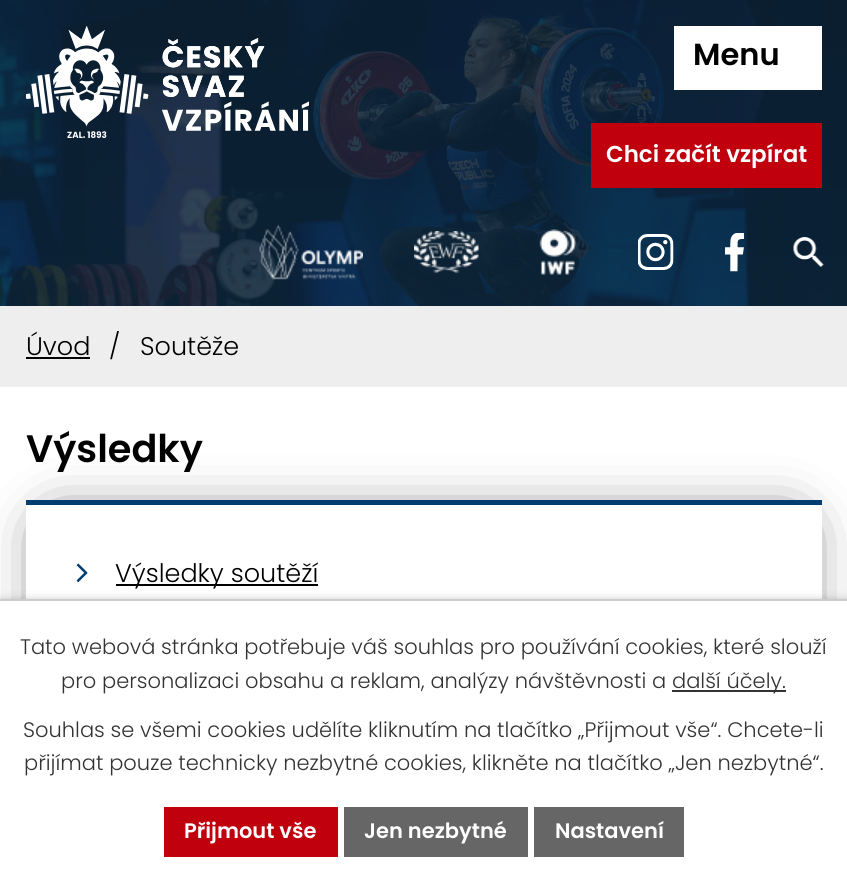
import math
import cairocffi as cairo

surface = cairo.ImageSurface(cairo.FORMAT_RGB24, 847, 883)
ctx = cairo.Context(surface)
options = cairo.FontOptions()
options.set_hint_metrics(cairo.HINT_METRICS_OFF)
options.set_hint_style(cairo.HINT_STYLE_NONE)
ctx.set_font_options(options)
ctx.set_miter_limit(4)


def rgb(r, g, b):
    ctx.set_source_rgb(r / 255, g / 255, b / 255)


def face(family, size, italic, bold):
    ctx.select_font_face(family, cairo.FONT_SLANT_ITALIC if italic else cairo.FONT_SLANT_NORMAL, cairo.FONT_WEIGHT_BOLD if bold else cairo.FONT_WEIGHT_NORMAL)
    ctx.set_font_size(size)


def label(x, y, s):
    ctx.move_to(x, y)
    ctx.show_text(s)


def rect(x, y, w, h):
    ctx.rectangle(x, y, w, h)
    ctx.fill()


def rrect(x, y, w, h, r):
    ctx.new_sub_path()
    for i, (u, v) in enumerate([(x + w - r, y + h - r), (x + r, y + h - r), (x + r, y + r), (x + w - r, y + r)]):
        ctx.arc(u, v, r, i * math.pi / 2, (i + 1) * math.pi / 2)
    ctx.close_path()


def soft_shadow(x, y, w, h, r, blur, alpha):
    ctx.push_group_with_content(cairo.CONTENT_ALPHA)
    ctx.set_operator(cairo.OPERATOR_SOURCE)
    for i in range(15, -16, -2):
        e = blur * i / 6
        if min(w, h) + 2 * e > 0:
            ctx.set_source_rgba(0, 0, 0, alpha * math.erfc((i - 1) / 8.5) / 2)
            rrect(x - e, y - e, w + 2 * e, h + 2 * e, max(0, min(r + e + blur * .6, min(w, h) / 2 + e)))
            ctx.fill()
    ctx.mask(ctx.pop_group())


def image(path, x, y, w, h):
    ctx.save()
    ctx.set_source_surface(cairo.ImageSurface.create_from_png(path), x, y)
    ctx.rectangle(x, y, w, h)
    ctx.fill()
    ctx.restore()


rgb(255, 255, 255)
ctx.paint()
rgb(13, 40, 63)
rect(0, 0, 847, 306)
image('image0.png', 0, 0, 847, 306)
gradient = cairo.LinearGradient(424, 306, 424, 0)
gradient.add_color_stop_rgba(0, 0, 0, 0, 0.03)
gradient.add_color_stop_rgba(1, 0, 0, 0, 0.12)
ctx.set_source(gradient)
rect(0, 0, 847, 306)
rgb(255, 255, 255)
rect(674, 26, 148, 64)
face('Poppins SemiBold', 30.5, 0, 0)
rgb(0, 0, 0)
label(693, 65, 'Menu')
image('image1.png', 26, 26, 283, 112)
rgb(193, 0, 14)
rect(591, 123, 231, 65)
face('Poppins SemiBold', 23, 0, 0)
rgb(255, 255, 255)
label(606, 162, 'Chci začít vzpírat')
image('image2.png', 259, 224, 104, 56)
image('image3.png', 414, 231, 65, 42)
image('image4.png', 539, 229, 38, 46)
image('image5.png', 638, 234, 36, 36)
image('image6.png', 725, 233, 19, 39)
image('image7.png', 793, 237, 31, 30)
rgb(238, 238, 238)
rect(0, 306, 847, 81)
face('Poppins Light', 25.5, 0, 0)
rgb(0, 0, 0)
label(26, 355, 'Úvod')
rect(26, 357, 64, 2)
label(109, 355, '/')
label(140, 355, 'Soutěže')
rgb(0, 0, 0)
soft_shadow(56, 530, 736, 276, 0, 30, 1)
face('Poppins SemiBold', 38.25, 0, 0)
rgb(0, 0, 0)
label(26, 462, 'Výsledky')
rgb(255, 255, 255)
rect(26, 505, 796, 94)
rgb(0, 61, 112)
rect(26, 500, 796, 5)
image('image8.png', 76, 563, 12, 19)
rgb(0, 0, 0)
rect(116, 584, 202, 2)
face('Poppins Light', 25.5, 0, 0)
label(115, 582, 'Výsledky soutěží')
rgb(0, 0, 0)
soft_shadow(0, 599, 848, 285, 0, 4, 0.2)
rgb(255, 255, 255)
rect(0, 601, 847, 282)
rgb(204, 204, 204)
rect(0, 599, 847, 2)
face('Poppins Light', 21, 0, 0)
rgb(51, 51, 51)
label(20, 654, 'Tato webová stránka potřebuje váš souhlas pro používání cookies, které slouží')
label(61, 688, 'pro personalizaci obsahu a reklam, analýzy návštěvnosti a')
rect(672, 690, 114, 2)
label(672, 688, 'další účely.')
label(23, 737, 'Souhlas se všemi cookies udělíte kliknutím na tlačítko „Přijmout vše“. Chcete-li')
label(24, 770, 'přijímat pouze technicky nezbytné cookies, klikněte na tlačítko „Jen nezbytné“.')
rgb(193, 0, 14)
rect(164, 807, 174, 50)
face('Poppins SemiBold', 21, 0, 0)
rgb(255, 255, 255)
label(184, 838, 'Přijmout vše')
rgb(102, 102, 102)
rect(344, 807, 184, 50)
rgb(255, 255, 255)
label(364, 838, 'Jen nezbytné')
rgb(102, 102, 102)
rect(534, 807, 150, 50)
rgb(255, 255, 255)
label(555, 838, 'Nastavení')
surface.write_to_png('render.png')
